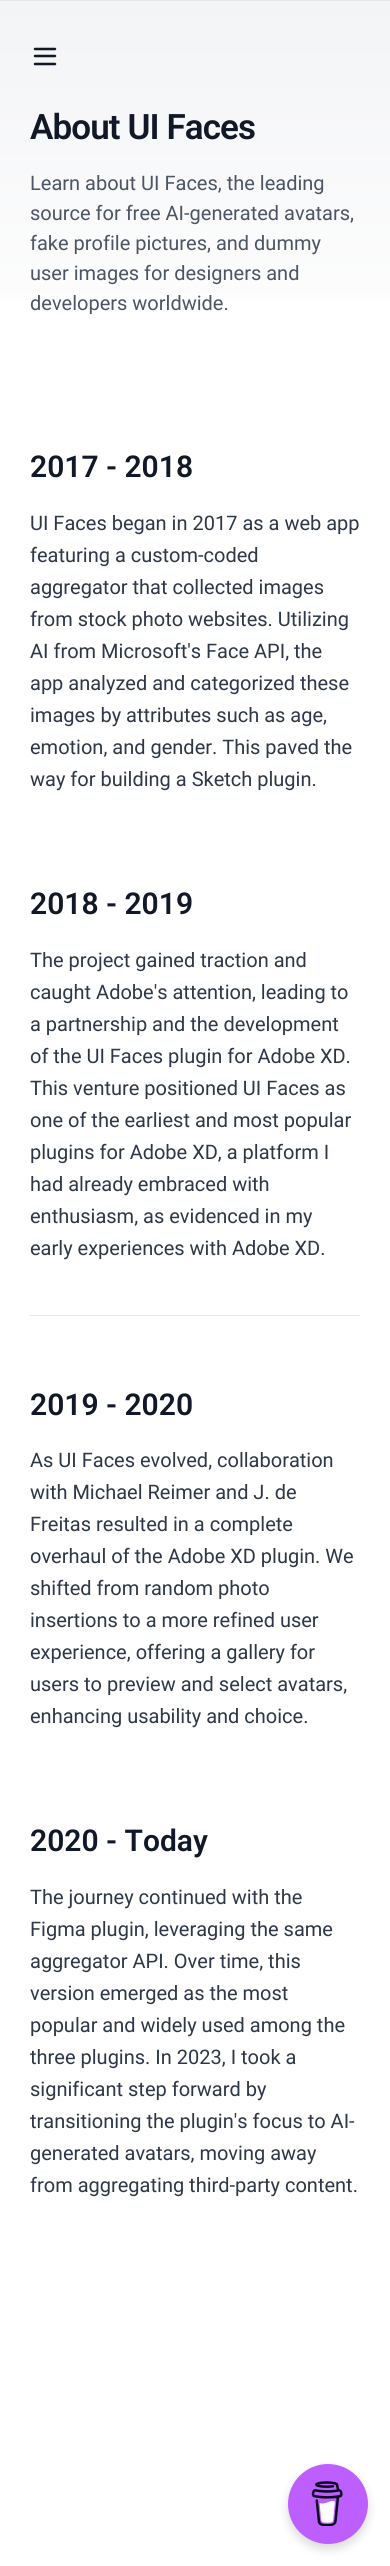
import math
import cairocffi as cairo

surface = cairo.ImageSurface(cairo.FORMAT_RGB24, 390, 2566)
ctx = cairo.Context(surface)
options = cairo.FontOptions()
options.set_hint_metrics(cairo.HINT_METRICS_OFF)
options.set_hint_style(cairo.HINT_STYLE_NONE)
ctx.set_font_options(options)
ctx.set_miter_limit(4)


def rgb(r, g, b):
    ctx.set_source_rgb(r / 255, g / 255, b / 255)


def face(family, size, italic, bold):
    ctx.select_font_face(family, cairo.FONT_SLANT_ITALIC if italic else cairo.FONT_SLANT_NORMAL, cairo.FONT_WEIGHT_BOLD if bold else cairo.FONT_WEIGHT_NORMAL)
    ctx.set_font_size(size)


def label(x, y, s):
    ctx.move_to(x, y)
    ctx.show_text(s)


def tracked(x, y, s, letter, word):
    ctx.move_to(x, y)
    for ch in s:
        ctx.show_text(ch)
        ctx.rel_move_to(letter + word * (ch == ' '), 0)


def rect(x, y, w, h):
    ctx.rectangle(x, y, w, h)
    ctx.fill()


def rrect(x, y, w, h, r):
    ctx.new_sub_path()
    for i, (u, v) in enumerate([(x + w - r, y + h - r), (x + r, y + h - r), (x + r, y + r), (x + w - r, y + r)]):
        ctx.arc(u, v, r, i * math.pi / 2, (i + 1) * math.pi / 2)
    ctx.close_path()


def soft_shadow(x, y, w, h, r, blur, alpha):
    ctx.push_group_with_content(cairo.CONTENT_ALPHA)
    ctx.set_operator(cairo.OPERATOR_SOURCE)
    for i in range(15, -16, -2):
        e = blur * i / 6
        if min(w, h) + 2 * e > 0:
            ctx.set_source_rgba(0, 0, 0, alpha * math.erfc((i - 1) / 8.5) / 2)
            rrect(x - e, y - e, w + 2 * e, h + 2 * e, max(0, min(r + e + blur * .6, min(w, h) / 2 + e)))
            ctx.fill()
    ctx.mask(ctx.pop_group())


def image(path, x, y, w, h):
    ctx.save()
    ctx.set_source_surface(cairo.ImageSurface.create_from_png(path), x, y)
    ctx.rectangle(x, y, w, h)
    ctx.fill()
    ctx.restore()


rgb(255, 255, 255)
ctx.paint()
rgb(229, 231, 235)
rect(0, 0, 390, 1)
gradient = cairo.LinearGradient(195, 1.2, 195, 379)
gradient.add_color_stop_rgba(0, 0.953, 0.957, 0.965, 1)
gradient.add_color_stop_rgba(1, 1, 1, 1, 1)
ctx.set_source(gradient)
rect(0, 1, 390, 299)
ctx.new_path()
ctx.move_to(35, 49)
ctx.line_to(55, 49)
ctx.move_to(35, 56)
ctx.line_to(55, 56)
ctx.move_to(35, 64)
ctx.line_to(55, 64)
rgb(17, 24, 39)
ctx.set_line_width(2.5)
ctx.set_line_cap(cairo.LINE_CAP_ROUND)
ctx.set_line_join(cairo.LINE_JOIN_ROUND)
ctx.stroke()
face('Roboto SemiBold', 35, 0, 0)
tracked(30, 139, 'About UI Faces', -0.9, 0)
face('Roboto', 20, 0, 0)
rgb(75, 85, 99)
label(30, 190, 'Learn about UI Faces, the leading')
label(30, 220, 'source for free AI-generated avatars,')
label(30, 250, 'fake profile pictures, and dummy')
label(30, 280, 'user images for designers and')
label(30, 310, 'developers worldwide.')
face('Roboto SemiBold', 30, 0, 0)
rgb(17, 24, 39)
label(30, 477, '2017 - 2018')
face('Roboto', 20, 0, 0)
rgb(45, 55, 72)
label(30, 530, 'UI Faces began in 2017 as a web app')
label(30, 562, 'featuring a custom-coded')
label(30, 594, 'aggregator that collected images')
label(30, 626, 'from stock photo websites. Utilizing')
label(30, 658, 'AI from Microsoft\'s Face API, the')
label(30, 690, 'app analyzed and categorized these')
label(30, 722, 'images by attributes such as age,')
label(30, 754, 'emotion, and gender. This paved the')
label(30, 786, 'way for building a Sketch plugin.')
face('Roboto SemiBold', 30, 0, 0)
rgb(17, 24, 39)
label(30, 914, '2018 - 2019')
face('Roboto', 20, 0, 0)
rgb(45, 55, 72)
label(30, 967, 'The project gained traction and')
label(30, 999, 'caught Adobe\'s attention, leading to')
label(30, 1031, 'a partnership and the development')
label(30, 1063, 'of the UI Faces plugin for Adobe XD.')
label(30, 1095, 'This venture positioned UI Faces as')
label(30, 1127, 'one of the earliest and most popular')
label(30, 1159, 'plugins for Adobe XD, a platform I')
label(30, 1191, 'had already embraced with')
label(30, 1223, 'enthusiasm, as evidenced in my')
label(30, 1255, 'early experiences with Adobe XD.')
rgb(229, 231, 235)
rect(30, 1315, 330, 1)
face('Roboto SemiBold', 30, 0, 0)
rgb(17, 24, 39)
label(30, 1415, '2019 - 2020')
face('Roboto', 20, 0, 0)
rgb(45, 55, 72)
label(30, 1467, 'As UI Faces evolved, collaboration')
label(30, 1499, 'with Michael Reimer and J. de')
label(30, 1531, 'Freitas resulted in a complete')
label(30, 1563, 'overhaul of the Adobe XD plugin. We')
label(30, 1595, 'shifted from random photo')
label(30, 1627, 'insertions to a more refined user')
label(30, 1659, 'experience, offering a gallery for')
label(30, 1691, 'users to preview and select avatars,')
label(30, 1723, 'enhancing usability and choice.')
face('Roboto SemiBold', 30, 0, 0)
rgb(17, 24, 39)
label(30, 1851, '2020 - Today')
face('Roboto', 20, 0, 0)
rgb(45, 55, 72)
label(30, 1904, 'The journey continued with the')
label(30, 1936, 'Figma plugin, leveraging the same')
label(30, 1968, 'aggregator API. Over time, this')
label(30, 2000, 'version emerged as the most')
label(30, 2032, 'popular and widely used among the')
label(30, 2064, 'three plugins. In 2023, I took a')
label(30, 2096, 'significant step forward by')
label(30, 2128, 'transitioning the plugin\'s focus to AI-')
label(30, 2160, 'generated avatars, moving away')
label(30, 2192, 'from aggregating third-party content.')
rgb(0, 0, 0)
soft_shadow(288, 2469, 80, 80, 40, 5, 0.15)
rgb(189, 95, 255)
ctx.arc(328, 2504, 40, 0, 2 * math.pi)
ctx.fill()
image('image0.png', 311, 2481, 32, 45)
surface.write_to_png('render.png')
